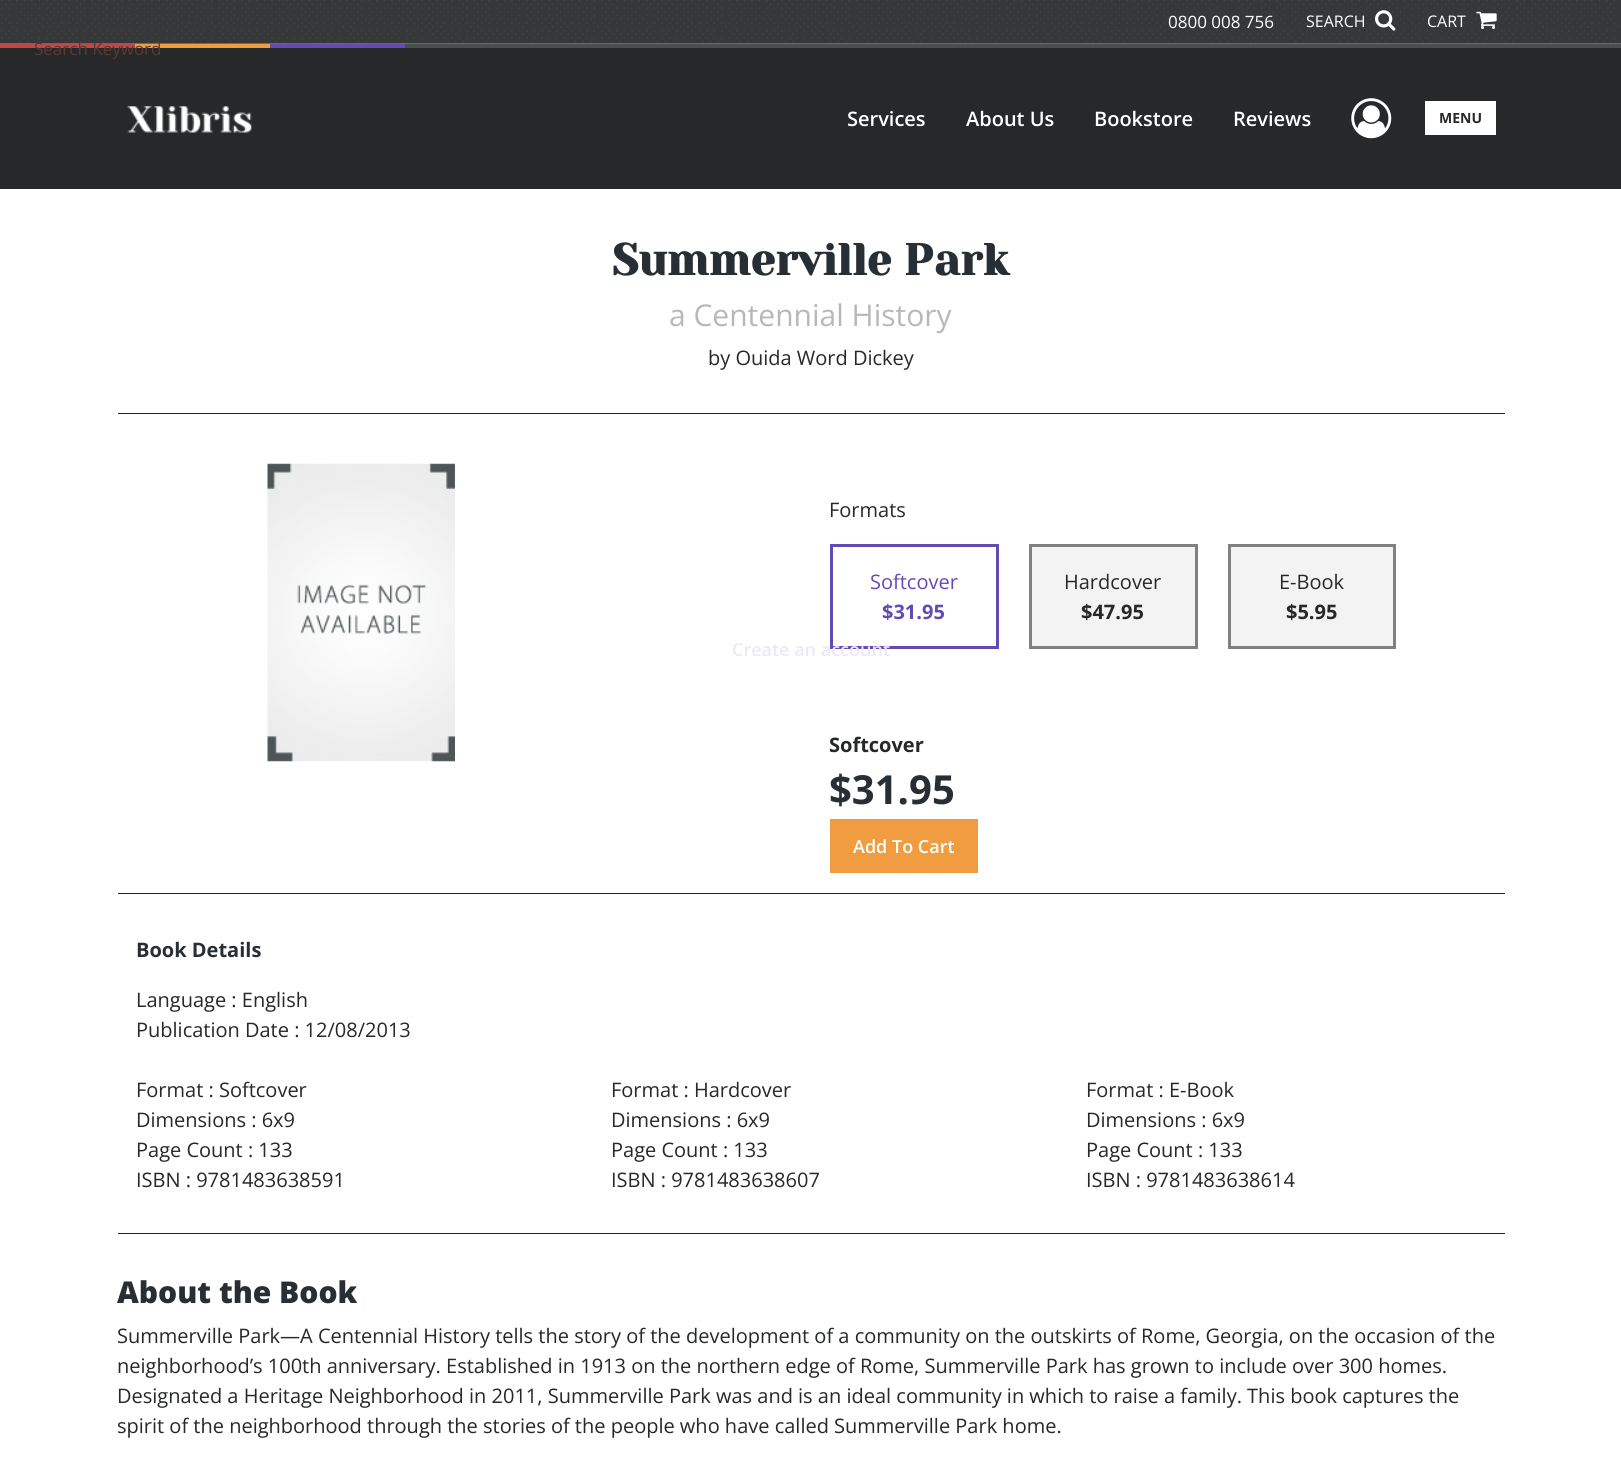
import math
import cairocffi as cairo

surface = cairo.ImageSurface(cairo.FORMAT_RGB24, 1621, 1470)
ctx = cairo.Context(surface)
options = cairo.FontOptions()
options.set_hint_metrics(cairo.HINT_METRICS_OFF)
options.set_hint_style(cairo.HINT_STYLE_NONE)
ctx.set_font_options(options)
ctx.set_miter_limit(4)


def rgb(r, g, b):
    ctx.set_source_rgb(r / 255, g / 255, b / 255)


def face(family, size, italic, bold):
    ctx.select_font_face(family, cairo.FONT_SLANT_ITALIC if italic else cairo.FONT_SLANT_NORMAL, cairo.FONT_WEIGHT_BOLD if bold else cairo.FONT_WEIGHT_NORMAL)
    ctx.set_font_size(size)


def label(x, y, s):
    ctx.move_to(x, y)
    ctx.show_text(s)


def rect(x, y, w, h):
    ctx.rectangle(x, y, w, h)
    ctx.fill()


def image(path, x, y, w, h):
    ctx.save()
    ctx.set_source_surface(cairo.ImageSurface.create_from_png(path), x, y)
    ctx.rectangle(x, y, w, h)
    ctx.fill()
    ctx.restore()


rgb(255, 255, 255)
ctx.paint()
image('image0.png', 0, 0, 1621, 44)
face('Open Sans', 16, 0, 0)
rgb(255, 255, 255)
label(1306, 27, 'SEARCH')
image('image1.png', 1375, 10, 21, 21)
label(1427, 27, 'CART')
image('image2.png', 1476, 11, 21, 19)
rgb(192, 72, 72)
rect(0, 44, 135, 4)
rgb(240, 156, 65)
rect(135, 44, 135, 4)
rgb(38, 40, 41)
rect(0, 48, 1621, 141)
face('Open Sans', 17, 0, 0)
rgb(90, 57, 52)
label(34, 55, 'Search Keyword')
rgb(255, 255, 255)
label(1168, 28, '0800 008 756')
rgb(98, 76, 178)
rect(270, 44, 135, 4)
rgb(75, 78, 80)
rect(405, 44, 1216, 4)
image('image3.png', 127, 106, 125, 27)
face('Open Sans SemiBold', 20, 0, 0)
rgb(255, 255, 255)
label(847, 126, 'Services')
label(966, 126, 'About Us')
label(1094, 126, 'Bookstore')
label(1233, 126, 'Reviews')
image('image4.png', 1351, 98, 41, 41)
rect(1425, 101, 71, 34)
face('Open Sans', 14, 0, 1)
rgb(38, 40, 41)
label(1439, 123, 'MENU')
ctx.rectangle(831.5, 545.5, 166, 102)
rgb(98, 76, 178)
ctx.set_line_width(3)
ctx.stroke()
face('Open Sans SemiBold', 18, 0, 0)
rgb(235, 233, 245)
label(732, 656, 'Create an account')
face('Yeseva One', 44, 0, 1)
rgb(40, 47, 52)
label(612, 275, 'Summerville Park')
face('Open Sans', 30, 0, 0)
rgb(184, 184, 184)
label(669, 326, 'a Centennial History')
face('Open Sans', 20, 0, 0)
rgb(38, 40, 41)
label(708, 365, 'by Ouida Word Dickey')
rgb(34, 36, 37)
rect(118, 413, 1387, 1)
image('image5.png', 267, 463, 188, 299)
rgb(38, 40, 41)
label(829, 517, 'Formats')
rgb(98, 76, 178)
label(870, 589, 'Softcover')
face('Open Sans', 20, 0, 1)
label(882, 619, '$31.95')
rgb(243, 243, 243)
ctx.rectangle(1030.5, 545.5, 166, 102)
ctx.fill_preserve()
rgb(128, 128, 128)
ctx.stroke()
face('Open Sans', 20, 0, 0)
rgb(38, 40, 41)
label(1064, 589, 'Hardcover')
face('Open Sans', 20, 0, 1)
label(1081, 619, '$47.95')
rgb(243, 243, 243)
ctx.rectangle(1229.5, 545.5, 165, 102)
ctx.fill_preserve()
rgb(128, 128, 128)
ctx.stroke()
face('Open Sans', 20, 0, 0)
rgb(38, 40, 41)
label(1279, 589, 'E-Book')
face('Open Sans', 20, 0, 1)
label(1286, 619, '$5.95')
label(829, 752, 'Softcover')
face('Open Sans', 40, 0, 1)
rgb(40, 47, 52)
label(829, 804, '$31.95')
rgb(240, 156, 65)
rect(830, 819, 148, 54)
face('Open Sans SemiBold', 18, 0, 0)
rgb(255, 255, 255)
label(853, 853, 'Add To Cart')
rgb(34, 36, 37)
rect(118, 893, 1387, 1)
face('Open Sans', 20, 0, 1)
rgb(40, 47, 52)
label(136, 957, 'Book Details')
face('Open Sans', 20, 0, 0)
rgb(38, 40, 41)
label(136, 1007, 'Language : English')
label(136, 1037, 'Publication Date : 12/08/2013')
label(136, 1097, 'Format : Softcover')
label(136, 1127, 'Dimensions : 6x9')
label(136, 1157, 'Page Count : 133')
label(136, 1187, 'ISBN : 9781483638591')
label(611, 1097, 'Format : Hardcover')
label(611, 1127, 'Dimensions : 6x9')
label(611, 1157, 'Page Count : 133')
label(611, 1187, 'ISBN : 9781483638607')
label(1086, 1097, 'Format : E-Book')
label(1086, 1127, 'Dimensions : 6x9')
label(1086, 1157, 'Page Count : 133')
label(1086, 1187, 'ISBN : 9781483638614')
rgb(34, 36, 37)
rect(118, 1233, 1387, 1)
face('Open Sans ExtraBold', 30, 0, 0)
rgb(40, 47, 52)
label(117, 1303, 'About the Book')
face('Open Sans', 20, 0, 0)
rgb(38, 40, 41)
label(117, 1343, 'Summerville Park—A Centennial History tells the story of the development of a community on the outskirts of Rome, Georgia, on the occasion of the')
label(117, 1373, 'neighborhood’s 100th anniversary. Established in 1913 on the northern edge of Rome, Summerville Park has grown to include over 300 homes.')
label(117, 1403, 'Designated a Heritage Neighborhood in 2011, Summerville Park was and is an ideal community in which to raise a family. This book captures the')
label(117, 1433, 'spirit of the neighborhood through the stories of the people who have called Summerville Park home.')
surface.write_to_png('render.png')
